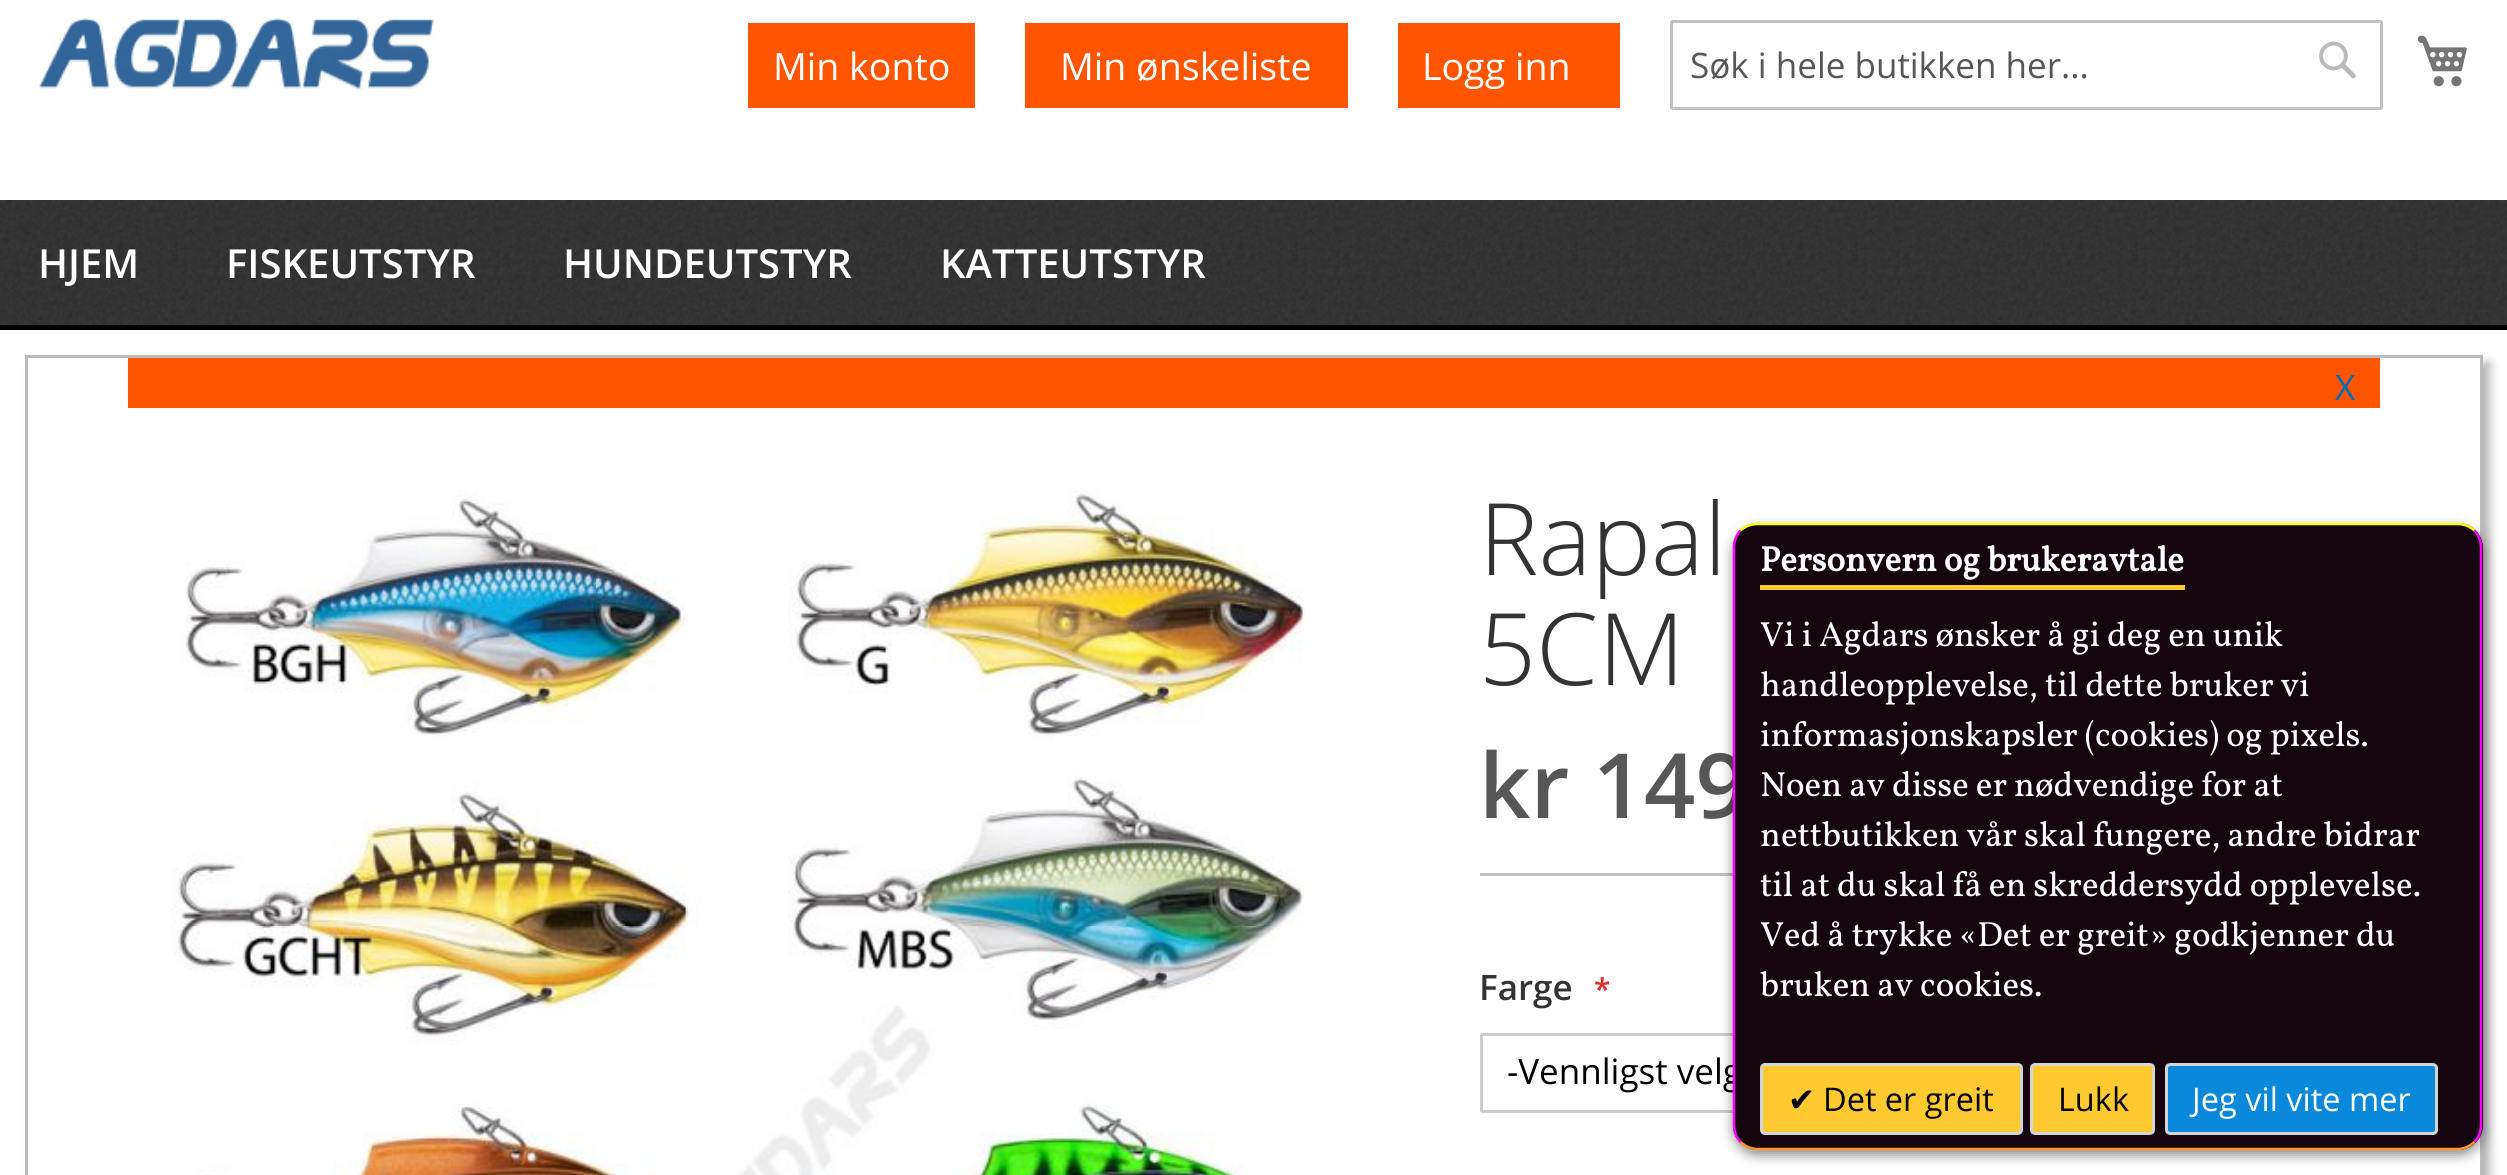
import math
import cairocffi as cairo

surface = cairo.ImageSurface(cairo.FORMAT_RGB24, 2507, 1175)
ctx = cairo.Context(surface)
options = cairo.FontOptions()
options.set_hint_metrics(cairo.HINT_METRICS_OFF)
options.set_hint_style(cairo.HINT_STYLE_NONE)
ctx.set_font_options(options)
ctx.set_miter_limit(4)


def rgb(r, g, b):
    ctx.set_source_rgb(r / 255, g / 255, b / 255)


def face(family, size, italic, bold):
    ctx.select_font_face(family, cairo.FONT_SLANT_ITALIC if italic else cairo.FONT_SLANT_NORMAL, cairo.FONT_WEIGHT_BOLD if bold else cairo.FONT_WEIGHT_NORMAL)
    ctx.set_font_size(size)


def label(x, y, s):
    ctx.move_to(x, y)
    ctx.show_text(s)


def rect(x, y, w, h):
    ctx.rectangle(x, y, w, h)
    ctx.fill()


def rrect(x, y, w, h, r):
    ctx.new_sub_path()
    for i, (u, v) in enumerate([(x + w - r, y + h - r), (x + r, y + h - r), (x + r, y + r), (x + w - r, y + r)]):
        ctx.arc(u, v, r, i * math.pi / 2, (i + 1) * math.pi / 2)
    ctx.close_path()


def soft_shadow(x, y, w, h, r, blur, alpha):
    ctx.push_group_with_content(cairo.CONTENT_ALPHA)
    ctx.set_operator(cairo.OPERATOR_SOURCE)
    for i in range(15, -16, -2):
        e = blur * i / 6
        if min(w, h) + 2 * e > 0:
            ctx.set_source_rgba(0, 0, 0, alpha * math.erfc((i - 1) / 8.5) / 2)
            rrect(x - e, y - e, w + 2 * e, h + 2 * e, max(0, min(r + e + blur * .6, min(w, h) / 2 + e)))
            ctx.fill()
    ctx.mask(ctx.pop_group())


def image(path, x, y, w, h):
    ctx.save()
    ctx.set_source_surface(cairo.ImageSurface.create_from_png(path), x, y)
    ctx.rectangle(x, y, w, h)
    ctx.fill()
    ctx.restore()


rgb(255, 255, 255)
ctx.paint()
image('image0.png', 39, 18, 395, 72)
rgb(255, 85, 1)
rect(748, 23, 227, 85)
face('Open Sans', 37.5, 0, 0)
rgb(255, 255, 255)
label(773, 80, 'Min konto')
rgb(255, 85, 1)
rect(1025, 23, 323, 85)
rgb(255, 255, 255)
label(1060, 80, 'Min ønskeliste')
rgb(255, 85, 1)
rect(1398, 23, 222, 85)
rgb(255, 255, 255)
label(1422, 80, 'Logg inn')
rrect(1671.5, 21.5, 710, 87, 1)
rgb(194, 194, 194)
ctx.set_line_width(3)
ctx.stroke()
face('Open Sans', 35, 0, 0)
rgb(87, 87, 87)
label(1690, 78, 'Søk i hele butikken her...')
image('image1.png', 2319, 41, 37, 38)
image('image2.png', 2417, 35, 50, 52)
image('image3.png', 0, 200, 2507, 125)
rgb(0, 0, 0)
rect(0, 325, 2507, 5)
face('Open Sans SemiBold', 40, 0, 0)
rgb(255, 255, 255)
label(38, 278, 'HJEM')
label(226, 278, 'FISKEUTSTYR')
label(563, 278, 'HUNDEUTSTYR')
label(940, 278, 'KATTEUTSTYR')
rgb(0, 0, 0)
soft_shadow(33, 363, 2457, 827, 0, 5, 0.3)
rgb(255, 255, 255)
ctx.rectangle(26.5, 356.5, 2455, 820)
ctx.fill_preserve()
rgb(187, 187, 187)
ctx.stroke()
rgb(255, 85, 1)
rect(128, 358, 2252, 50)
face('Open Sans', 35, 0, 0)
rgb(0, 107, 180)
label(2335, 400, 'X')
image('image4.png', 171, 490, 1134, 685)
face('Open Sans Light', 100, 0, 0)
rgb(51, 51, 51)
label(1479, 575, 'Rapal')
label(1479, 685, '5CM')
rgb(193, 193, 193)
rect(1480, 873, 253, 3)
face('Open Sans SemiBold', 90, 0, 0)
rgb(87, 87, 87)
label(1479, 818, 'kr 149')
face('Open Sans SemiBold', 35, 0, 0)
rgb(51, 51, 51)
label(1479, 1000, 'Farge')
face('Open Sans SemiBold', 30, 0, 0)
rgb(224, 43, 39)
label(1594, 1000, '*')
rrect(1481.5, 1034.5, 717, 77, 1)
rgb(204, 204, 204)
ctx.stroke()
face('Open Sans', 35, 0, 0)
rgb(0, 0, 0)
label(1507, 1084, '-Vennligst velg')
rgb(0, 0, 0)
soft_shadow(1733, 528, 750, 627, 25, 6, 0.47)
rgb(20, 5, 15)
rrect(1733, 523, 750, 627, 25)
ctx.fill()
ctx.new_path()
ctx.move_to(1740.5, 530.5)
ctx.curve_to(1745, 526.5, 1751, 524, 1757.5, 524)
ctx.line_to(2457.5, 524)
ctx.curve_to(2464, 524, 2470, 526.5, 2474.5, 530.5)
rgb(255, 255, 0)
ctx.set_line_width(2.5)
ctx.stroke()
ctx.new_path()
ctx.move_to(2474.5, 530.5)
ctx.curve_to(2478.5, 535, 2481, 541, 2481, 547.5)
ctx.line_to(2481, 1125)
ctx.curve_to(2481, 1131.5, 2478.5, 1137.5, 2474.5, 1142)
rgb(255, 0, 255)
ctx.stroke()
ctx.new_path()
ctx.move_to(2474.5, 1142)
ctx.curve_to(2470, 1146, 2464, 1149, 2457.5, 1149)
ctx.line_to(1757.5, 1149)
ctx.curve_to(1751, 1149, 1745, 1146, 1740.5, 1142)
rgb(255, 149, 43)
ctx.stroke()
ctx.new_path()
ctx.move_to(1740.5, 1142)
ctx.curve_to(1736.5, 1137.5, 1734, 1131.5, 1734, 1125)
ctx.line_to(1734, 547.5)
ctx.curve_to(1734, 541, 1736.5, 535, 1740.5, 530.5)
rgb(255, 0, 255)
ctx.stroke()
face('Vollkorn', 35, 0, 1)
rgb(255, 255, 255)
label(1760, 571, 'Personvern og brukeravtale')
rgb(255, 202, 48)
rect(1760, 585, 425, 5)
face('Vollkorn', 35, 0, 0)
rgb(255, 255, 255)
label(1760, 646, 'Vi i Agdars ønsker å gi deg en unik')
label(1760, 696, 'handleopplevelse, til dette bruker vi')
label(1760, 746, 'informasjonskapsler (cookies) og pixels.')
label(1760, 796, 'Noen av disse er nødvendige for at')
label(1760, 846, 'nettbutikken vår skal fungere, andre bidrar')
label(1760, 896, 'til at du skal få en skreddersydd opplevelse.')
label(1760, 946, 'Ved å trykke «Det er greit» godkjenner du')
label(1760, 996, 'bruken av cookies.')
rgb(255, 202, 48)
rrect(1761.5, 1064.5, 260, 69, 3.5)
ctx.fill_preserve()
rgb(212, 212, 212)
ctx.set_line_width(3)
ctx.stroke()
face('DejaVu Sans', 32.5, 0, 0)
rgb(0, 0, 0)
label(1788, 1111, '✔')
face('Open Sans', 32.5, 0, 0)
label(1823, 1111, 'Det er greit')
rgb(255, 202, 48)
rrect(2031.5, 1064.5, 122, 69, 3.5)
ctx.fill_preserve()
rgb(212, 212, 212)
ctx.stroke()
rgb(0, 0, 0)
label(2058, 1111, 'Lukk')
rgb(10, 137, 218)
rrect(2166.5, 1064.5, 270, 69, 3.5)
ctx.fill_preserve()
rgb(212, 212, 212)
ctx.stroke()
rgb(255, 255, 255)
label(2192, 1111, 'Jeg vil vite mer')
surface.write_to_png('render.png')
